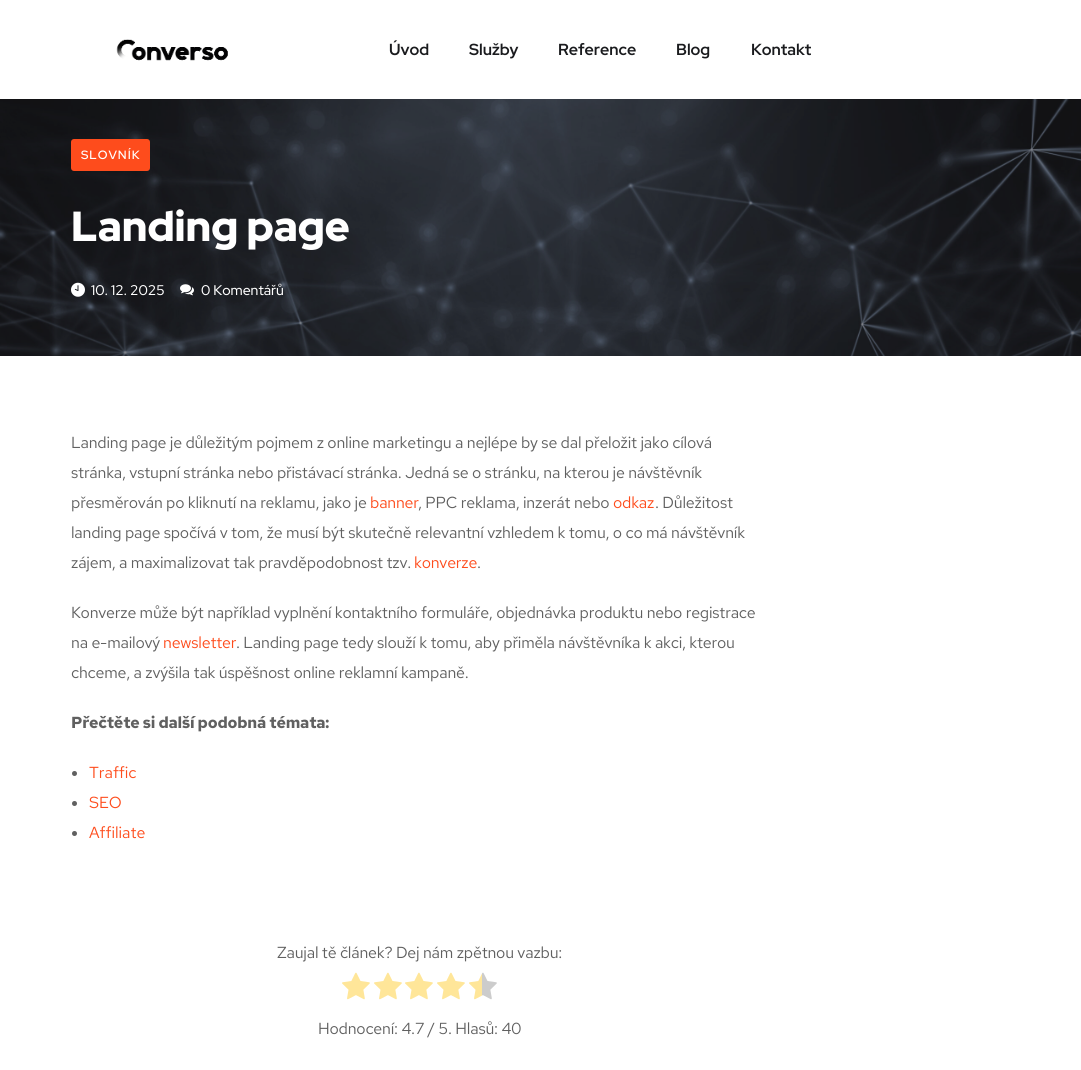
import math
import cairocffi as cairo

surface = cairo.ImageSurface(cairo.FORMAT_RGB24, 1081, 1070)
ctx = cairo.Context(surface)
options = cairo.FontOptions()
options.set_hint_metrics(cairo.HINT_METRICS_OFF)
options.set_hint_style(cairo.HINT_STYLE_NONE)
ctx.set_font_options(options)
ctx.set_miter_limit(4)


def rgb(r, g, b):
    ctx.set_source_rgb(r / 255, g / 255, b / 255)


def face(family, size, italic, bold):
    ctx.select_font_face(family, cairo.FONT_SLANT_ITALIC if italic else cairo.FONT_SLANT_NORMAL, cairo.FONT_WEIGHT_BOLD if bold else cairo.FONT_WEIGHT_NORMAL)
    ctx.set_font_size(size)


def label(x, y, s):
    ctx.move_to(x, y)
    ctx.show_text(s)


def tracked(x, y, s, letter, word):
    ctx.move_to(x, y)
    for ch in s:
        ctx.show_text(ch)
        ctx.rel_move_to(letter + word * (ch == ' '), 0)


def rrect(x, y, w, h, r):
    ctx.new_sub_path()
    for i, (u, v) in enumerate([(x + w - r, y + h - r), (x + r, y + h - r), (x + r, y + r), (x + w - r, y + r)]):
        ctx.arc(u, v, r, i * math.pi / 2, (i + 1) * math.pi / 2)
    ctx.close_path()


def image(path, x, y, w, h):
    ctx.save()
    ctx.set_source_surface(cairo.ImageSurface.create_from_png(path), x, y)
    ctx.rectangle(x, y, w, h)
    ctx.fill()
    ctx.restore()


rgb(255, 255, 255)
ctx.paint()
image('image0.png', 116, 39, 112, 22)
face('Red Hat Display', 16, 0, 1)
rgb(26, 27, 30)
label(389, 55, 'Úvod')
label(469, 55, 'Služby')
label(558, 55, 'Reference')
label(676, 55, 'Blog')
label(751, 55, 'Kontakt')
image('image1.png', 0, 99, 1081, 257)
rgb(254, 76, 28)
rrect(71, 139, 79, 32, 3)
ctx.fill()
face('Red Hat Display SemiBold', 12, 0, 0)
rgb(255, 255, 255)
tracked(81, 159, 'SLOVNÍK', 1, 0)
face('Red Hat Display Black', 42, 0, 0)
label(71, 241, 'Landing page')
image('image2.png', 71, 282, 14, 15)
face('Red Hat Display Medium', 14, 0, 0)
label(91, 295, '10. 12. 2025')
image('image3.png', 180, 284, 14, 12)
label(201, 295, '0 Komentářů')
face('Red Hat Text', 16, 0, 0)
rgb(96, 96, 96)
tracked(71, 448, 'Landing page je důležitým pojmem z online marketingu a nejlépe by se dal přeložit jako cílová', -0.2, 0)
tracked(71, 478, 'stránka, vstupní stránka nebo přistávací stránka. Jedná se o stránku, na kterou je návštěvník', -0.2, 0)
tracked(71, 508, 'přesměrován po kliknutí na reklamu, jako je', -0.2, 0)
rgb(254, 76, 28)
tracked(370, 508, 'banner', -0.2, 0)
rgb(96, 96, 96)
tracked(418, 508, ', PPC reklama, inzerát nebo', -0.2, 0)
rgb(254, 76, 28)
tracked(613, 508, 'odkaz', -0.2, 0)
rgb(96, 96, 96)
tracked(655, 508, '. Důležitost', -0.2, 0)
tracked(71, 538, 'landing page spočívá v tom, že musí být skutečně relevantní vzhledem k tomu, o co má návštěvník', -0.2, 0)
tracked(71, 568, 'zájem, a maximalizovat tak pravděpodobnost tzv.', -0.2, 0)
rgb(254, 76, 28)
tracked(414, 568, 'konverze', -0.2, 0)
rgb(96, 96, 96)
tracked(477, 568, '.', -0.2, 0)
tracked(71, 618, 'Konverze může být například vyplnění kontaktního formuláře, objednávka produktu nebo registrace', -0.2, 0)
tracked(71, 648, 'na e-mailový', -0.2, 0)
rgb(254, 76, 28)
tracked(163, 648, 'newsletter', -0.2, 0)
rgb(96, 96, 96)
tracked(236, 648, '. Landing page tedy slouží k tomu, aby přiměla návštěvníka k akci, kterou', -0.2, 0)
tracked(71, 678, 'chceme, a zvýšila tak úspěšnost online reklamní kampaně.', -0.2, 0)
face('Red Hat Text', 16, 0, 1)
tracked(71, 728, 'Přečtěte si další podobná témata:', -0.2, 0)
ctx.new_path()
ctx.arc(74.5, 773.5, 2.5, 0, 2 * math.pi)
ctx.fill()
face('Red Hat Text', 16, 0, 0)
rgb(254, 76, 28)
label(89, 778, 'Traffic')
rgb(96, 96, 96)
ctx.new_path()
ctx.arc(74.5, 803.5, 2.5, 0, 2 * math.pi)
ctx.fill()
rgb(254, 76, 28)
label(89, 808, 'SEO')
rgb(96, 96, 96)
ctx.new_path()
ctx.arc(74.5, 833.5, 2.5, 0, 2 * math.pi)
ctx.fill()
rgb(254, 76, 28)
label(89, 838, 'Affiliate')
rgb(96, 96, 96)
tracked(277, 958, 'Zaujal tě článek? Dej nám zpětnou vazbu:', -0.2, 0)
image('image4.png', 342, 972, 28, 28)
image('image4.png', 374, 972, 28, 28)
image('image4.png', 405, 972, 28, 28)
image('image4.png', 437, 972, 28, 28)
image('image5.png', 469, 972, 28, 28)
tracked(318, 1034, 'Hodnocení: 4.7 / 5. Hlasů: 40', -0.2, 0)
surface.write_to_png('render.png')
